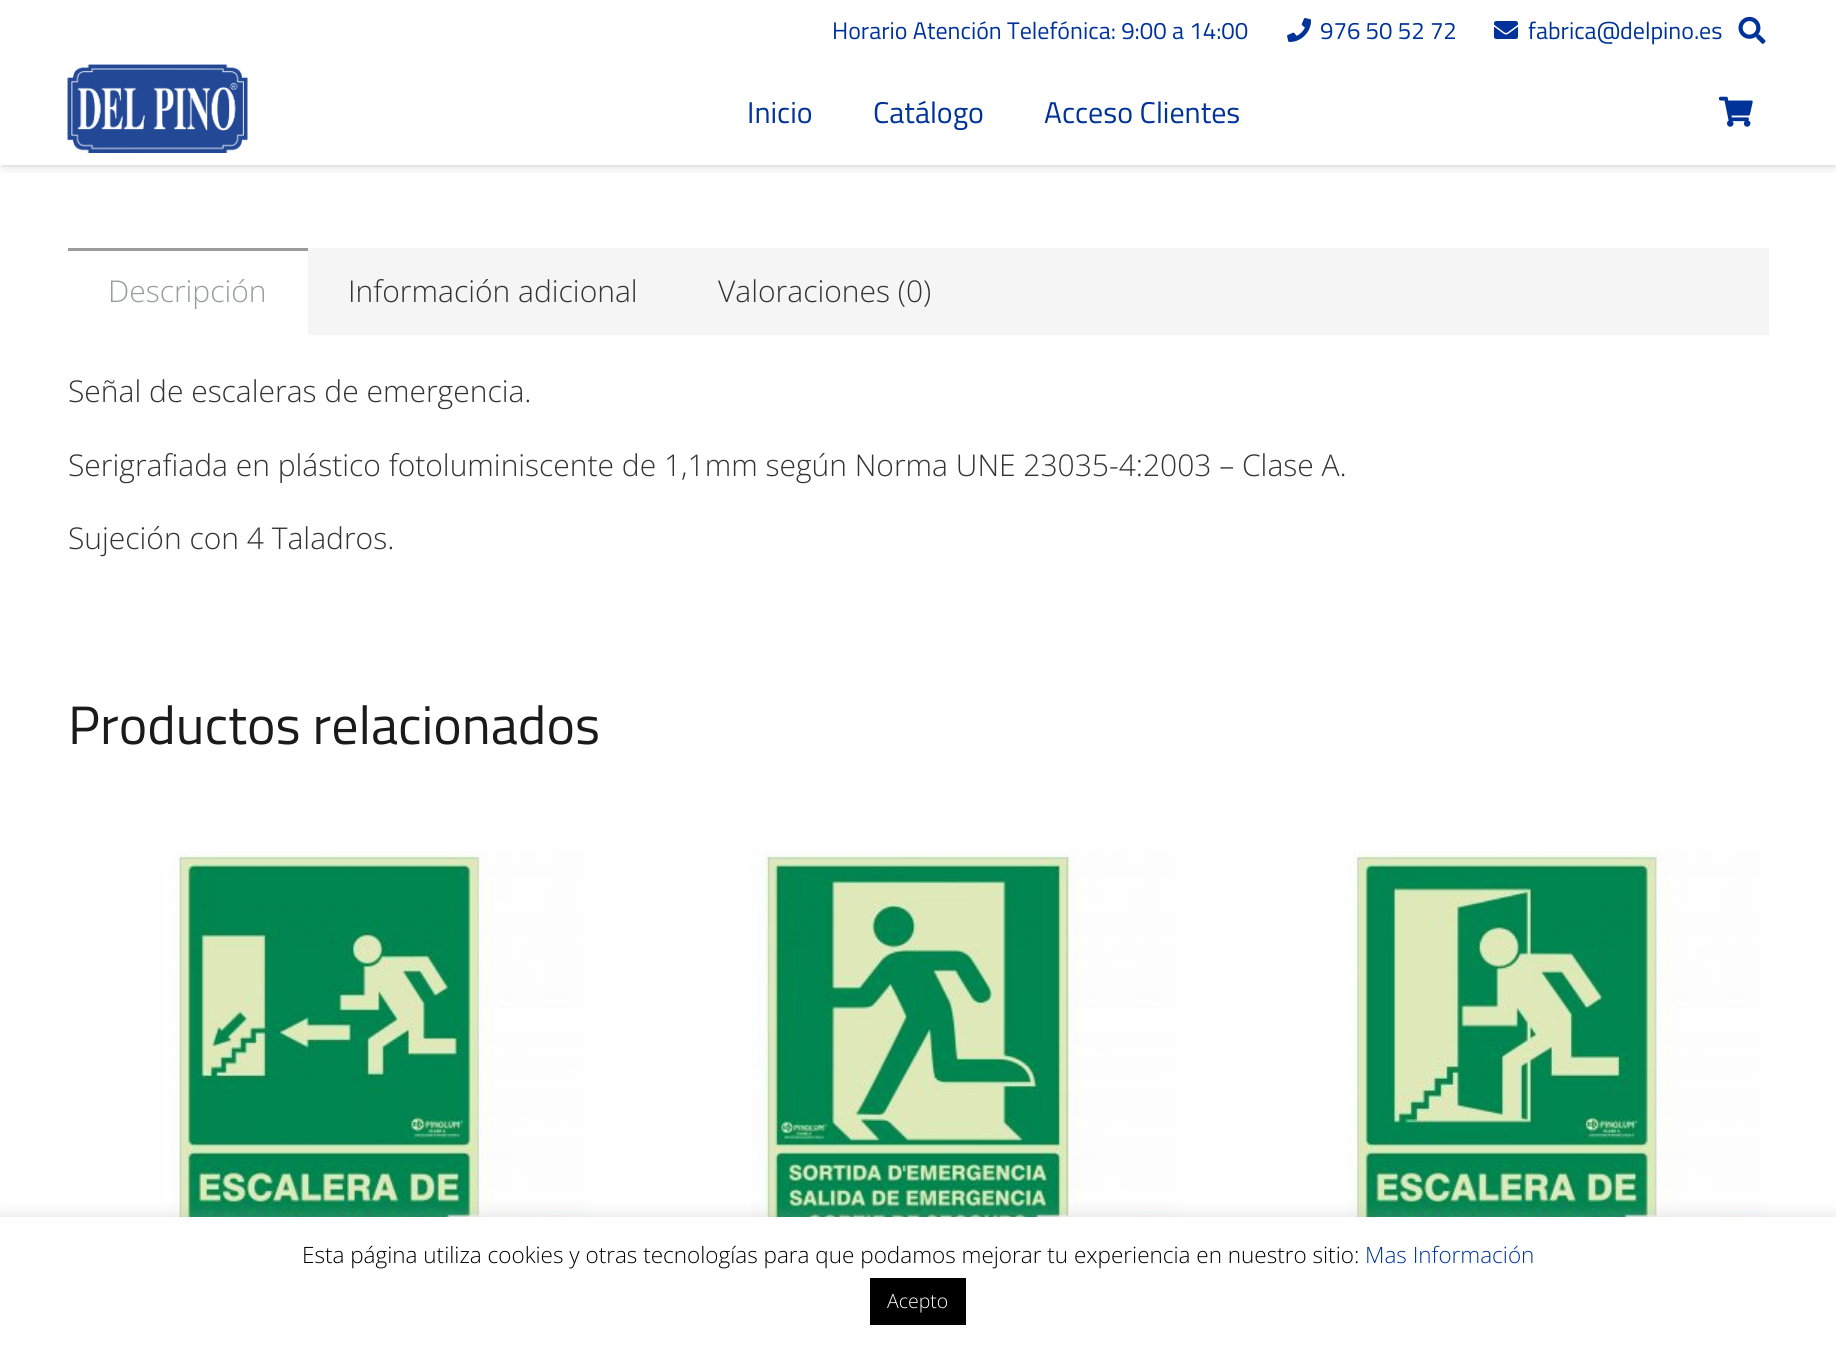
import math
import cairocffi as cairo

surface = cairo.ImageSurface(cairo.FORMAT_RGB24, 1836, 1349)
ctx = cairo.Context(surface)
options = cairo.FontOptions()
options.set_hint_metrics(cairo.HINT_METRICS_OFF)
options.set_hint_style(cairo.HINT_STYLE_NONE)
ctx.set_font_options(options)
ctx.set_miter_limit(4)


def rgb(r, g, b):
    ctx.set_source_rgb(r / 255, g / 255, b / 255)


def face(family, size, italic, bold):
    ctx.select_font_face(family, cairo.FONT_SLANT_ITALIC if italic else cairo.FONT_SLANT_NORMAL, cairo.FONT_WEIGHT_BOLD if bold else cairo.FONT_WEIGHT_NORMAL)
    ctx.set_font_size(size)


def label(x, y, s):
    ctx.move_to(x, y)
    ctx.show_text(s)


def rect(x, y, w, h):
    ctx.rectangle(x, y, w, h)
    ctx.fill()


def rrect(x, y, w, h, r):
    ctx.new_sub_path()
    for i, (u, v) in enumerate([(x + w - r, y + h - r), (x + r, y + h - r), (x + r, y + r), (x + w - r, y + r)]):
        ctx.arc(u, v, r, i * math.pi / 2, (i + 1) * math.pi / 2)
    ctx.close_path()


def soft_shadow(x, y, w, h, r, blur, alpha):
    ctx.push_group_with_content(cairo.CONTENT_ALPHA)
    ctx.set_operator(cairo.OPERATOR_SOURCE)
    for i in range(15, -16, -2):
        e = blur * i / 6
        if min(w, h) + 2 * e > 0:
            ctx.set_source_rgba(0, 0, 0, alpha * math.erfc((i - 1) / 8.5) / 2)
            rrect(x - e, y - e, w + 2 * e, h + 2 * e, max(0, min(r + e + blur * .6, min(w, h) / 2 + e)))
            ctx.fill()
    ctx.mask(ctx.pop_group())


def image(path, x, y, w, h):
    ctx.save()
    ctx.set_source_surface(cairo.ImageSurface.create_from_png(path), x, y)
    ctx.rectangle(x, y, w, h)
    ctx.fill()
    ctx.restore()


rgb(255, 255, 255)
ctx.paint()
face('Titillium Web', 24, 0, 0)
rgb(0, 51, 153)
label(832, 39, 'Horario Atención Telefónica: 9:00 a 14:00')
image('image0.png', 1287, 18, 25, 24)
label(1320, 39, '976 50 52 72')
image('image1.png', 1494, 21, 24, 18)
label(1528, 39, 'fabrica@delpino.es')
image('image2.png', 1738, 16, 28, 28)
image('image5.png', 139, 165, 304, 1)
rgb(0, 0, 0)
soft_shadow(2, 65, 1833, 102, 0, 1, 0.05)
soft_shadow(2, 66, 1833, 102, 0, 4, 0.1)
rgb(255, 255, 255)
rect(0, 61, 1836, 104)
image('image3.png', 67, 64, 181, 89)
face('Titillium Web', 30, 0, 0)
rgb(0, 51, 153)
label(747, 123, 'Inicio')
label(873, 123, 'Catálogo')
label(1044, 123, 'Acceso Clientes')
image('image4.png', 1719, 96, 34, 31)
rgb(245, 245, 245)
rect(308, 248, 1461, 87)
rgb(153, 156, 159)
rect(68, 248, 240, 3)
face('Open Sans Light', 30, 0, 0)
label(108, 302, 'Descripción')
rgb(51, 51, 51)
label(348, 302, 'Información adicional')
label(718, 302, 'Valoraciones (0)')
label(68, 402, 'Señal de escaleras de emergencia.')
label(68, 476, 'Serigrafiada en plástico fotoluminiscente de 1,1mm según Norma UNE 23035-4:2003 – Clase A.')
label(68, 549, 'Sujeción con 4 Taladros.')
face('Titillium Web', 54, 0, 0)
rgb(26, 26, 26)
label(68, 744, 'Productos relacionados')
image('image6.png', 170, 851, 421, 366)
image('image7.png', 751, 851, 430, 366)
image('image8.png', 1348, 851, 421, 366)
rgb(172, 171, 171)
soft_shadow(0, 1215, 1836, 134, 0, 7.5, 0.3)
rgb(255, 255, 255)
rect(0, 1217, 1836, 132)
face('Open Sans Light', 22.5, 0, 0)
rgb(0, 0, 0)
label(302, 1263, 'Esta página utiliza cookies y otras tecnologías para que podamos mejorar tu experiencia en nuestro sitio:')
rgb(0, 51, 153)
label(1365, 1263, 'Mas Información')
rgb(0, 0, 0)
rect(870, 1278, 96, 47)
face('Open Sans Light', 19.5, 0, 0)
rgb(255, 255, 255)
label(887, 1308, 'Acepto')
surface.write_to_png('render.png')
